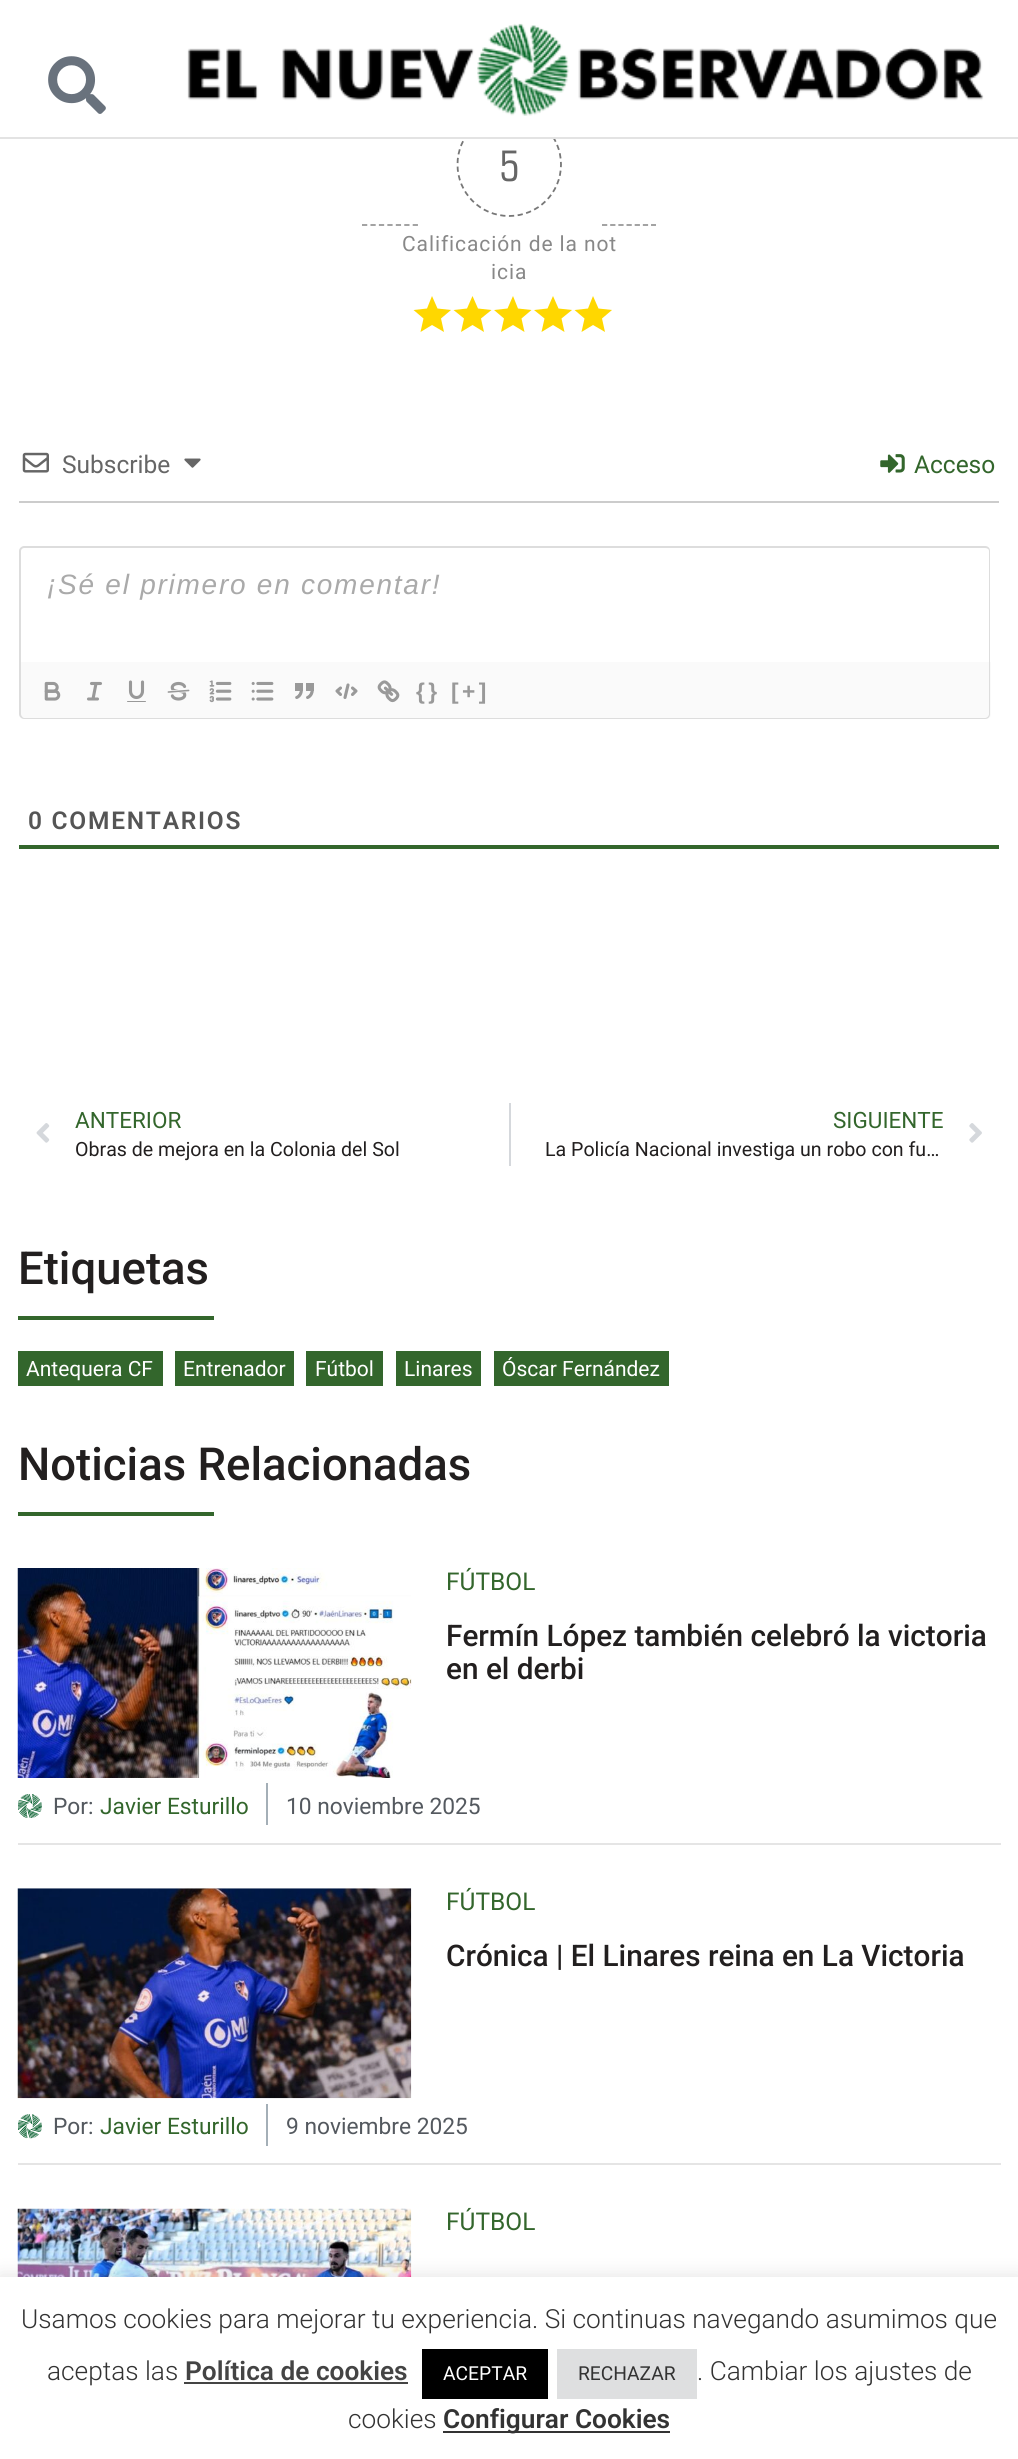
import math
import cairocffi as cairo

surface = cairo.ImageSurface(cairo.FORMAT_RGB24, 1018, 2459)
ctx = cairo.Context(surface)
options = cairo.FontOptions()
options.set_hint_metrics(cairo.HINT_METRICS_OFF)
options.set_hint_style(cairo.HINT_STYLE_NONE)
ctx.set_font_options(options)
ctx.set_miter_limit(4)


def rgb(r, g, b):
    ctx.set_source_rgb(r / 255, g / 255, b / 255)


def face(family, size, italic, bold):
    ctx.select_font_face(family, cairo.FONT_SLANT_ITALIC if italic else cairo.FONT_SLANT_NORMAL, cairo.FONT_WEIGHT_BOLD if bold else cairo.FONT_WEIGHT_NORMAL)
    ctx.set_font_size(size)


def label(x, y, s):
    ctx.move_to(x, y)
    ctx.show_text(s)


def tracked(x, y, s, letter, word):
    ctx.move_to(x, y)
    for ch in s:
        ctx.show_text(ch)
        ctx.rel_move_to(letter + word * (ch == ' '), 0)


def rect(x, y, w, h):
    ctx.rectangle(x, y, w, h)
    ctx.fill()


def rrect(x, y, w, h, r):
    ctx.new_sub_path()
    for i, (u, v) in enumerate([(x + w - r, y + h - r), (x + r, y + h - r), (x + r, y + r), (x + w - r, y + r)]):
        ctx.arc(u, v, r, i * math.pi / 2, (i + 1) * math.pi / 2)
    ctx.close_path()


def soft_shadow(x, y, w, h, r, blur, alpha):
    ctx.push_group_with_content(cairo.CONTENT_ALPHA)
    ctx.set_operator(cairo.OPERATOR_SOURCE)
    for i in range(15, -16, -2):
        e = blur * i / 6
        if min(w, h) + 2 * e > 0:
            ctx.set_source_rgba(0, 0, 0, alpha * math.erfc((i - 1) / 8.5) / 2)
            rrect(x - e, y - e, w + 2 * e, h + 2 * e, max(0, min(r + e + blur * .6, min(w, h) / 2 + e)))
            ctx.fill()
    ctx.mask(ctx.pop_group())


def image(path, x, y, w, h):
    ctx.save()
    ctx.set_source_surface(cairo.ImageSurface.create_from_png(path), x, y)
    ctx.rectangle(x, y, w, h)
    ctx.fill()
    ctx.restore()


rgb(255, 255, 255)
ctx.paint()
ctx.new_path()
ctx.move_to(509, 113)
ctx.curve_to(538, 113, 561, 136, 561, 164.5)
ctx.curve_to(561, 193, 538, 216, 509, 216)
ctx.curve_to(480.5, 216, 457.5, 193, 457.5, 164.5)
ctx.curve_to(457.5, 136, 480.5, 113, 509, 113)
ctx.close_path()
rgb(119, 119, 119)
ctx.set_line_width(1.8)
ctx.set_dash([5.25, 3.5])
ctx.stroke()
rgb(255, 255, 255)
rect(464, 112, 90, 25)
rgb(227, 227, 227)
rect(0, 137, 1018, 2)
image('image0.png', 48, 56, 58, 58)
image('image1.png', 187, 23, 797, 93)
ctx.new_path()
ctx.move_to(362, 225)
ctx.line_to(418, 225)
rgb(153, 153, 153)
ctx.set_dash([5.25, 3.2])
ctx.stroke()
face('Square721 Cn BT', 42, 0, 0)
rgb(102, 102, 102)
label(499, 181, '5')
face('Roboto', 21, 0, 0)
rgb(136, 136, 136)
tracked(402, 251, 'Calificación de la not', 0.9, 0)
tracked(491, 279, 'icia', 0.9, 0)
rgb(255, 215, 0)
ctx.new_path()
ctx.move_to(432, 325)
ctx.line_to(444, 332)
ctx.line_to(441, 318.5)
ctx.line_to(451, 310)
ctx.line_to(437.5, 308.5)
ctx.line_to(432, 296)
ctx.line_to(427, 308.5)
ctx.line_to(413.5, 310)
ctx.line_to(423.5, 318.5)
ctx.line_to(420.5, 332)
ctx.close_path()
ctx.fill()
ctx.new_path()
ctx.move_to(472.5, 325)
ctx.line_to(484, 332)
ctx.line_to(481, 318.5)
ctx.line_to(491.5, 310)
ctx.line_to(478, 308.5)
ctx.line_to(472.5, 296)
ctx.line_to(467, 308.5)
ctx.line_to(453.5, 310)
ctx.line_to(464, 318.5)
ctx.line_to(461, 332)
ctx.close_path()
ctx.fill()
ctx.new_path()
ctx.move_to(513, 325)
ctx.line_to(524.5, 332)
ctx.line_to(521.5, 318.5)
ctx.line_to(531.5, 310)
ctx.line_to(518, 308.5)
ctx.line_to(513, 296)
ctx.line_to(507.5, 308.5)
ctx.line_to(494, 310)
ctx.line_to(504, 318.5)
ctx.line_to(501, 332)
ctx.close_path()
ctx.fill()
ctx.new_path()
ctx.move_to(553, 325)
ctx.line_to(564.5, 332)
ctx.line_to(561.5, 318.5)
ctx.line_to(572, 310)
ctx.line_to(558.5, 308.5)
ctx.line_to(553, 296)
ctx.line_to(547.5, 308.5)
ctx.line_to(534, 310)
ctx.line_to(544.5, 318.5)
ctx.line_to(541.5, 332)
ctx.close_path()
ctx.fill()
ctx.new_path()
ctx.move_to(593, 325)
ctx.line_to(605, 332)
ctx.line_to(602, 318.5)
ctx.line_to(612, 310)
ctx.line_to(598.5, 308.5)
ctx.line_to(593, 296)
ctx.line_to(588, 308.5)
ctx.line_to(574.5, 310)
ctx.line_to(584.5, 318.5)
ctx.line_to(581.5, 332)
ctx.close_path()
ctx.fill()
ctx.new_path()
ctx.move_to(602, 225)
ctx.line_to(656, 225)
rgb(153, 153, 153)
ctx.set_dash([5.25, 2.92])
ctx.stroke()
rgb(204, 204, 204)
rect(19, 501, 980, 2)
image('image2.png', 22, 452, 27, 21)
face('Roboto', 24.5, 0, 0)
rgb(102, 102, 102)
label(62, 473, 'Subscribe')
image('image3.png', 184, 458, 17, 10)
image('image4.png', 880, 454, 25, 19)
rgb(51, 102, 44)
label(914, 473, 'Acceso')
rgb(221, 221, 221)
ctx.set_fill_rule(cairo.FILL_RULE_EVEN_ODD)
ctx.new_path()
ctx.move_to(24, 546)
ctx.line_to(985, 546)
ctx.curve_to(988, 546, 990, 548, 990, 551)
ctx.line_to(990, 662)
ctx.line_to(19, 662)
ctx.line_to(19, 551)
ctx.curve_to(19, 548, 22, 546, 24, 546)
ctx.close_path()
ctx.move_to(24, 548)
ctx.line_to(985, 548)
ctx.curve_to(987, 548, 989, 549, 989, 551)
ctx.line_to(989, 662)
ctx.line_to(21, 662)
ctx.line_to(21, 551)
ctx.curve_to(21, 549, 23, 548, 24, 548)
ctx.close_path()
ctx.fill()
face('Liberation Sans', 28, 1, 0)
rgb(170, 170, 170)
tracked(47, 594, '¡Sé el primero en comentar!', 1.75, 0)
rgb(250, 250, 250)
ctx.new_path()
ctx.move_to(19, 662)
ctx.line_to(991, 662)
ctx.line_to(991, 714)
ctx.curve_to(991, 717, 989, 719, 986, 719)
ctx.line_to(24, 719)
ctx.curve_to(21, 719, 19, 717, 19, 714)
ctx.close_path()
ctx.fill()
rgb(221, 221, 221)
ctx.new_path()
ctx.move_to(19, 662)
ctx.line_to(990, 662)
ctx.line_to(990, 714)
ctx.curve_to(990, 717, 988, 719, 985, 719)
ctx.line_to(24, 719)
ctx.curve_to(22, 719, 19, 717, 19, 714)
ctx.close_path()
ctx.move_to(21, 662)
ctx.line_to(989, 662)
ctx.line_to(989, 714)
ctx.curve_to(989, 716, 987, 718, 985, 718)
ctx.line_to(24, 718)
ctx.curve_to(23, 718, 21, 716, 21, 714)
ctx.close_path()
ctx.fill()
image('image5.png', 44, 681, 17, 20)
ctx.new_path()
ctx.move_to(91.5, 683.5)
ctx.line_to(100.5, 683.5)
ctx.move_to(88.5, 699)
ctx.line_to(97.5, 699)
ctx.move_to(93, 699)
ctx.line_to(96, 683.5)
ctx.move_to(130.5, 682)
ctx.line_to(130.5, 691)
ctx.curve_to(130.5, 694.5, 133, 697.5, 136.5, 697.5)
ctx.curve_to(140, 697.5, 142.5, 694.5, 142.5, 691)
ctx.line_to(142.5, 682)
rgb(153, 153, 153)
ctx.set_line_width(3.1)
ctx.set_line_cap(cairo.LINE_CAP_ROUND)
ctx.set_line_join(cairo.LINE_JOIN_ROUND)
ctx.set_dash([])
ctx.stroke()
image('image6.png', 167, 681, 23, 20)
image('image7.png', 209, 680, 23, 23)
image('image8.png', 251, 681, 23, 20)
image('image9.png', 295, 683, 19, 16)
ctx.new_path()
ctx.move_to(340.5, 688)
ctx.line_to(337, 691)
ctx.line_to(340.5, 694.5)
ctx.move_to(352.5, 688)
ctx.line_to(356, 691)
ctx.line_to(352.5, 694.5)
ctx.move_to(348, 685)
ctx.line_to(345, 697.5)
ctx.stroke()
image('image10.png', 377, 680, 23, 23)
face('Liberation Sans', 22.75, 0, 1)
tracked(416, 699, '{}', 3.5, 0)
tracked(451, 699, '[+]', 3.5, 0)
rrect(127, 701, 19, 1, 0.5)
ctx.fill()
rgb(51, 102, 44)
rect(19, 845, 980, 4)
face('Roboto SemiBold', 24.5, 0, 0)
rgb(85, 85, 85)
tracked(28, 829, '0 COMENTARIOS', 1.75, 0)
image('image11.png', 36, 1123, 14, 20)
face('Roboto', 22.5, 0, 0)
rgb(51, 102, 44)
label(75, 1128, 'ANTERIOR')
face('Roboto', 19.6, 0, 0)
rgb(34, 31, 31)
label(75, 1156, 'Obras de mejora en la Colonia del Sol')
rgb(213, 216, 220)
rect(509, 1103, 2, 63)
face('Roboto', 22.5, 0, 0)
rgb(51, 102, 44)
label(833, 1128, 'SIGUIENTE')
face('Roboto', 19.6, 0, 0)
rgb(34, 31, 31)
label(545, 1156, 'La Policía Nacional investiga un robo con fu…')
image('image12.png', 969, 1123, 13, 20)
face('Roboto Medium', 45.5, 0, 0)
label(18, 1284, 'Etiquetas')
rgb(51, 102, 44)
rect(18, 1316, 196, 4)
rect(18, 1351, 145, 35)
face('Roboto', 21, 0, 0)
rgb(255, 255, 255)
label(26, 1376, 'Antequera CF')
rgb(51, 102, 44)
rect(175, 1351, 119, 35)
rgb(255, 255, 255)
label(183, 1376, 'Entrenador')
rgb(51, 102, 44)
rect(306, 1351, 77, 35)
rgb(255, 255, 255)
label(315, 1376, 'Fútbol')
rgb(51, 102, 44)
rect(396, 1351, 85, 35)
rgb(255, 255, 255)
label(404, 1376, 'Linares')
rgb(51, 102, 44)
rect(494, 1351, 175, 35)
rgb(255, 255, 255)
label(502, 1376, 'Óscar Fernández')
face('Roboto Medium', 45.5, 0, 0)
rgb(34, 31, 31)
label(18, 1480, 'Noticias Relacionadas')
rgb(51, 102, 44)
rect(18, 1512, 196, 4)
image('image13.png', 17, 1568, 395, 210)
face('Roboto', 24.5, 0, 0)
label(446, 1590, 'FÚTBOL')
face('Roboto Medium', 29.75, 0, 0)
rgb(34, 31, 31)
label(446, 1646, 'Fermín López también celebró la victoria')
label(446, 1679, 'en el derbi')
rgb(229, 229, 229)
rect(18, 1843, 983, 2)
image('image14.png', 18, 1794, 24, 24)
rgb(164, 175, 183)
rect(266, 1783, 2, 42)
face('Roboto', 22.75, 0, 0)
rgb(84, 89, 95)
label(53, 1814, 'Por:')
rgb(51, 102, 44)
label(100, 1814, 'Javier Esturillo')
rgb(84, 89, 95)
label(286, 1814, '10 noviembre 2025')
image('image15.png', 17, 1888, 395, 211)
face('Roboto', 24.5, 0, 0)
rgb(51, 102, 44)
label(446, 1910, 'FÚTBOL')
face('Roboto Medium', 29.75, 0, 0)
rgb(34, 31, 31)
label(446, 1966, 'Crónica | El Linares reina en La Victoria')
rgb(229, 229, 229)
rect(18, 2163, 983, 2)
image('image16.png', 18, 2114, 24, 25)
rgb(164, 175, 183)
rect(266, 2104, 2, 42)
face('Roboto', 22.75, 0, 0)
rgb(84, 89, 95)
label(53, 2134, 'Por:')
rgb(51, 102, 44)
label(100, 2134, 'Javier Esturillo')
rgb(84, 89, 95)
label(286, 2134, '9 noviembre 2025')
image('image17.png', 17, 2208, 395, 69)
face('Roboto', 24.5, 0, 0)
rgb(51, 102, 44)
label(446, 2230, 'FÚTBOL')
rgb(172, 171, 171)
soft_shadow(0, 2275, 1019, 184, 0, 9, 0.3)
rgb(255, 255, 255)
rect(0, 2277, 1018, 182)
face('Roboto Light', 26.25, 0, 0)
rgb(51, 51, 51)
label(21, 2328, 'Usamos cookies para mejorar tu experiencia. Si continuas navegando asumimos que')
label(47, 2380, 'aceptas las')
face('Roboto SemiBold', 26.25, 0, 0)
rgb(68, 68, 68)
label(185, 2380, 'Política de cookies')
rect(184, 2382, 224, 2)
rgb(0, 0, 0)
rect(422, 2349, 126, 50)
face('Roboto', 19.25, 0, 0)
rgb(255, 255, 255)
label(443, 2380, 'ACEPTAR')
rgb(222, 223, 224)
rect(557, 2349, 140, 50)
rgb(51, 51, 51)
label(578, 2380, 'RECHAZAR')
face('Roboto Light', 26.25, 0, 0)
label(697, 2380, '. Cambiar los ajustes de')
label(348, 2428, 'cookies')
rect(443, 2431, 227, 2)
face('Roboto SemiBold', 26.25, 0, 0)
label(443, 2428, 'Configurar Cookies')
surface.write_to_png('render.png')
